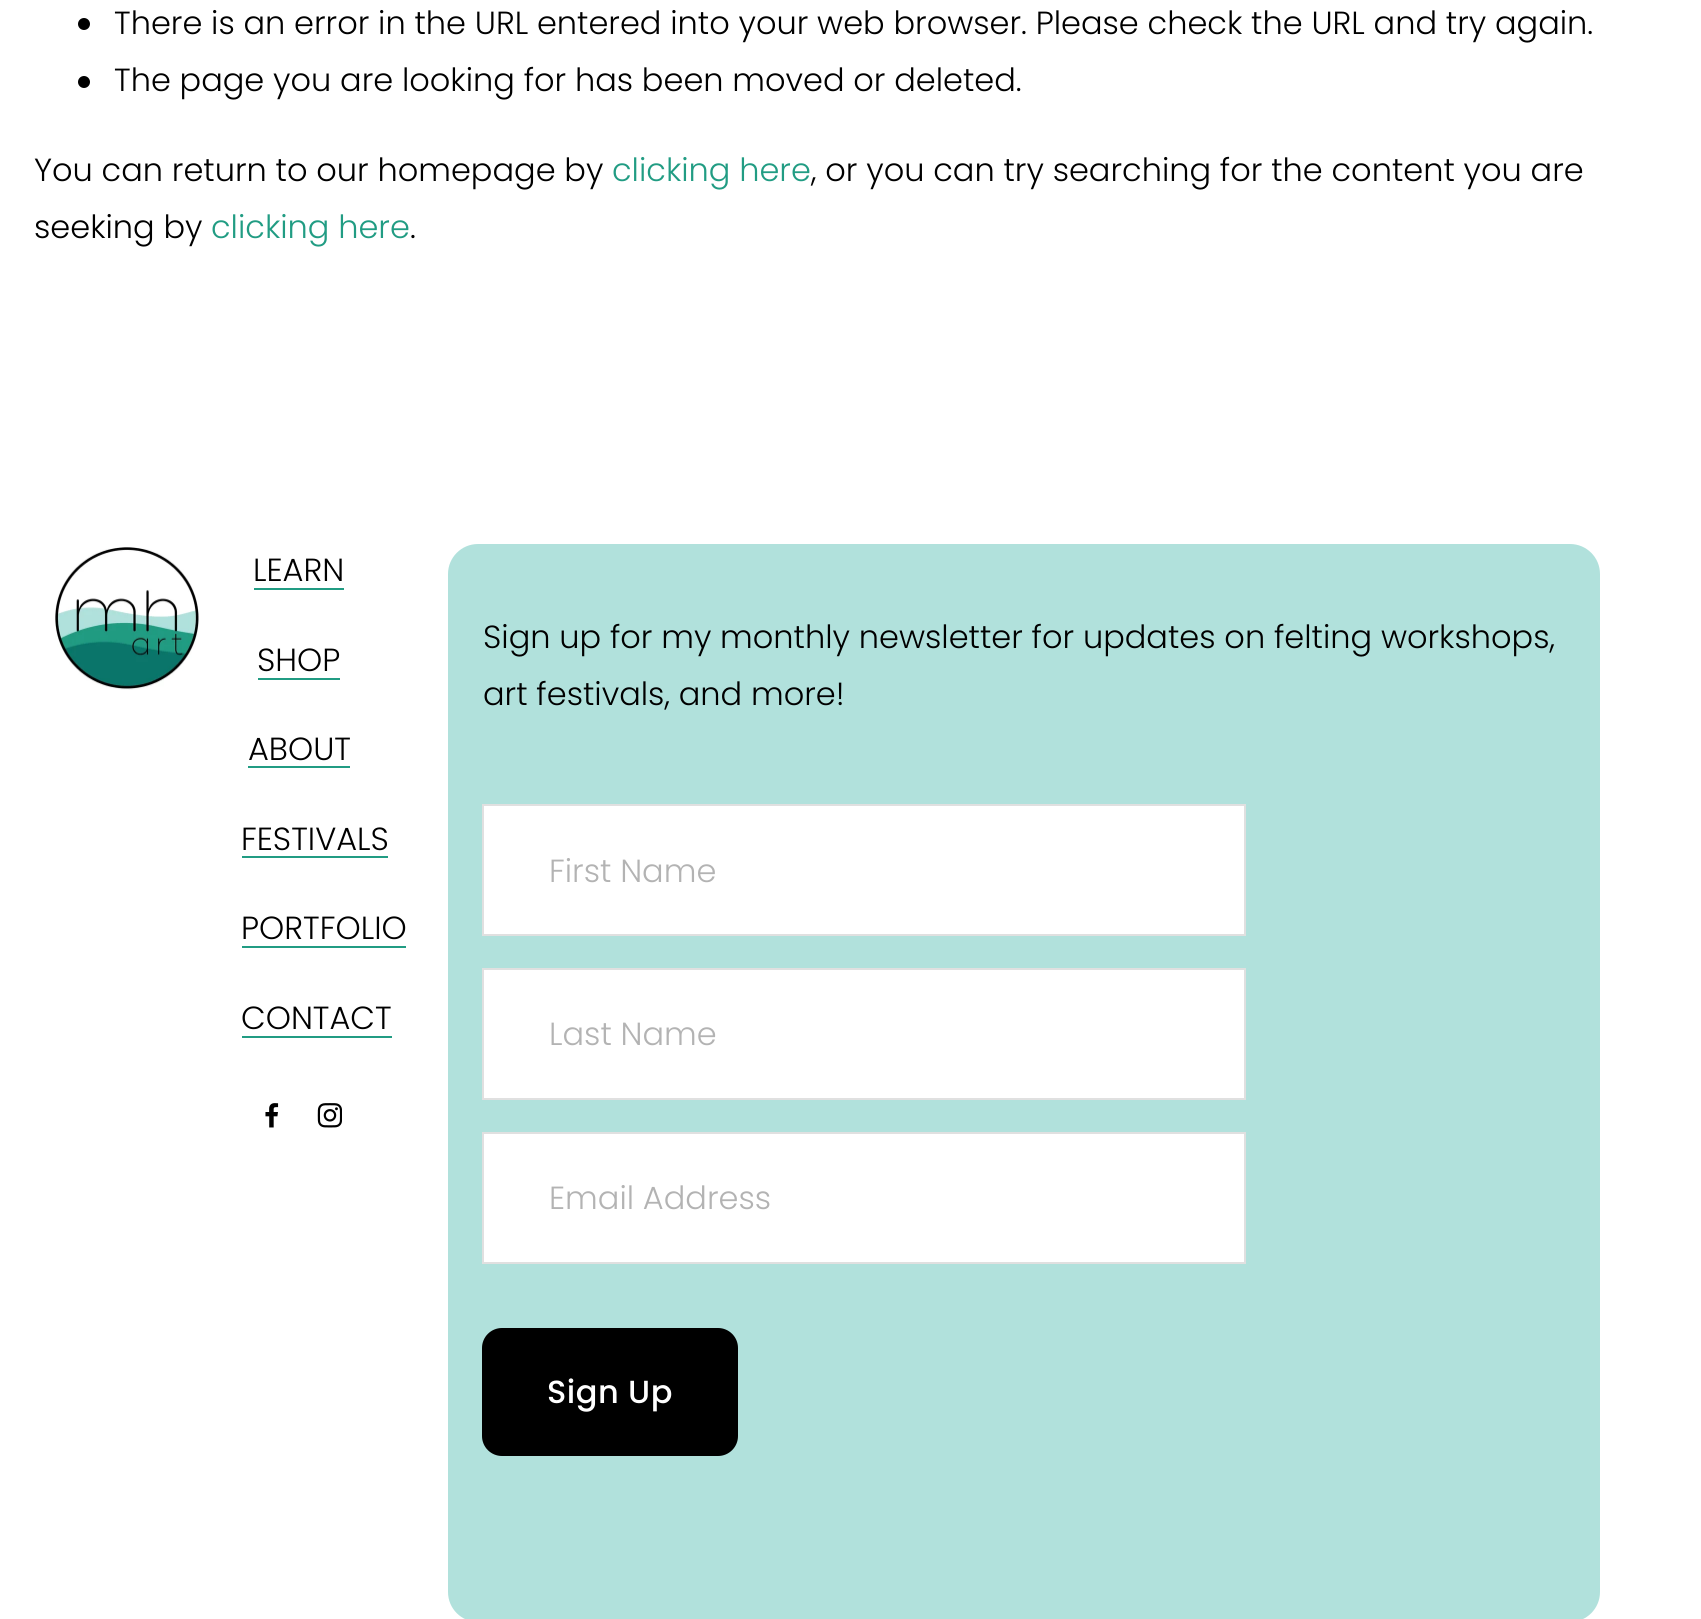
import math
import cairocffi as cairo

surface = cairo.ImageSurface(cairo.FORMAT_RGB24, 1701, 1619)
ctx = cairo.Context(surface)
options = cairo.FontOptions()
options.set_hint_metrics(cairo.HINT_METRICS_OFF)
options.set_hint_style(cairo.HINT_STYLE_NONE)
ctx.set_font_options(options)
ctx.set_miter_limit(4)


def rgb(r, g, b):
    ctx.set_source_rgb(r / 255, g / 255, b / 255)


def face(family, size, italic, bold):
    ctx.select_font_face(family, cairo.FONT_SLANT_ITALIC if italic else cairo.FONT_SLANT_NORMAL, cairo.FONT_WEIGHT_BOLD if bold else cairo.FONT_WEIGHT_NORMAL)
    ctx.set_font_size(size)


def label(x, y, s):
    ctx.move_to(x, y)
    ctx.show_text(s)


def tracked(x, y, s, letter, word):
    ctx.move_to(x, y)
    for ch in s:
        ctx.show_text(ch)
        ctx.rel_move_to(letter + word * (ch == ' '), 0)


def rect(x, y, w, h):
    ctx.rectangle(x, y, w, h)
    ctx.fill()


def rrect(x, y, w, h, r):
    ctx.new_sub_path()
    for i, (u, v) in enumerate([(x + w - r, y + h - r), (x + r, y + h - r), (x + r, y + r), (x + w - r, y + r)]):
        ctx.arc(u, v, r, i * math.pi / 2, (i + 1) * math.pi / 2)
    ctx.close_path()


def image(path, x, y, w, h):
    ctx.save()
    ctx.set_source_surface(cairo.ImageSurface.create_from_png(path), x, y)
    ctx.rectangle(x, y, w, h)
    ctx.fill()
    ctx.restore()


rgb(255, 255, 255)
ctx.paint()
rgb(0, 0, 0)
ctx.arc(84, 24, 6, 0, 2 * math.pi)
ctx.fill()
face('Poppins Light', 32, 0, 0)
label(114, 34, 'There is an error in the URL entered into your web browser. Please check the URL and try again.')
ctx.new_path()
ctx.arc(84, 82, 6, 0, 2 * math.pi)
ctx.fill()
label(114, 91, 'The page you are looking for has been moved or deleted.')
label(34, 181, 'You can return to our homepage by')
rgb(33, 156, 131)
label(612, 181, 'clicking here')
rgb(0, 0, 0)
label(811, 181, ', or you can try searching for the content you are')
label(34, 238, 'seeking by')
rgb(33, 156, 131)
label(211, 238, 'clicking here')
rgb(0, 0, 0)
label(410, 238, '.')
image('image0.png', 55, 547, 144, 143)
label(253, 581, 'LEARN')
rgb(33, 156, 131)
rect(254, 588, 90, 2)
rgb(0, 0, 0)
label(257, 671, 'SHOP')
rgb(33, 156, 131)
rect(258, 678, 82, 2)
rgb(0, 0, 0)
label(248, 760, 'ABOUT')
rgb(33, 156, 131)
rect(248, 766, 102, 2)
rgb(0, 0, 0)
label(241, 850, 'FESTIVALS')
rgb(33, 156, 131)
rect(242, 856, 146, 2)
rgb(0, 0, 0)
label(241, 939, 'PORTFOLIO')
rgb(33, 156, 131)
rect(242, 946, 164, 2)
rgb(0, 0, 0)
label(241, 1029, 'CONTACT')
rgb(33, 156, 131)
rect(242, 1036, 150, 2)
rgb(177, 225, 220)
rrect(448, 544, 1152, 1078, 30)
ctx.fill()
rgb(0, 0, 0)
label(483, 648, 'Sign up for my monthly newsletter for updates on felting workshops,')
label(483, 705, 'art festivals, and more!')
rgb(255, 255, 255)
ctx.rectangle(483, 805, 762, 130)
ctx.fill_preserve()
rgb(224, 224, 224)
ctx.stroke()
rgb(179, 179, 179)
label(549, 882, 'First Name')
rgb(255, 255, 255)
ctx.rectangle(483, 969, 762, 130)
ctx.fill_preserve()
rgb(224, 224, 224)
ctx.stroke()
rgb(179, 179, 179)
label(549, 1045, 'Last Name')
rgb(255, 255, 255)
ctx.rectangle(483, 1133, 762, 130)
ctx.fill_preserve()
rgb(224, 224, 224)
ctx.stroke()
rgb(179, 179, 179)
label(549, 1209, 'Email Address')
rgb(0, 0, 0)
rrect(482, 1328, 256, 128, 20)
ctx.fill()
face('Poppins Medium', 32, 0, 0)
rgb(255, 255, 255)
tracked(547, 1403, 'Sign Up', 0.5, 0)
image('image1.png', 265, 1103, 14, 25)
image('image2.png', 317, 1103, 25, 25)
surface.write_to_png('render.png')
